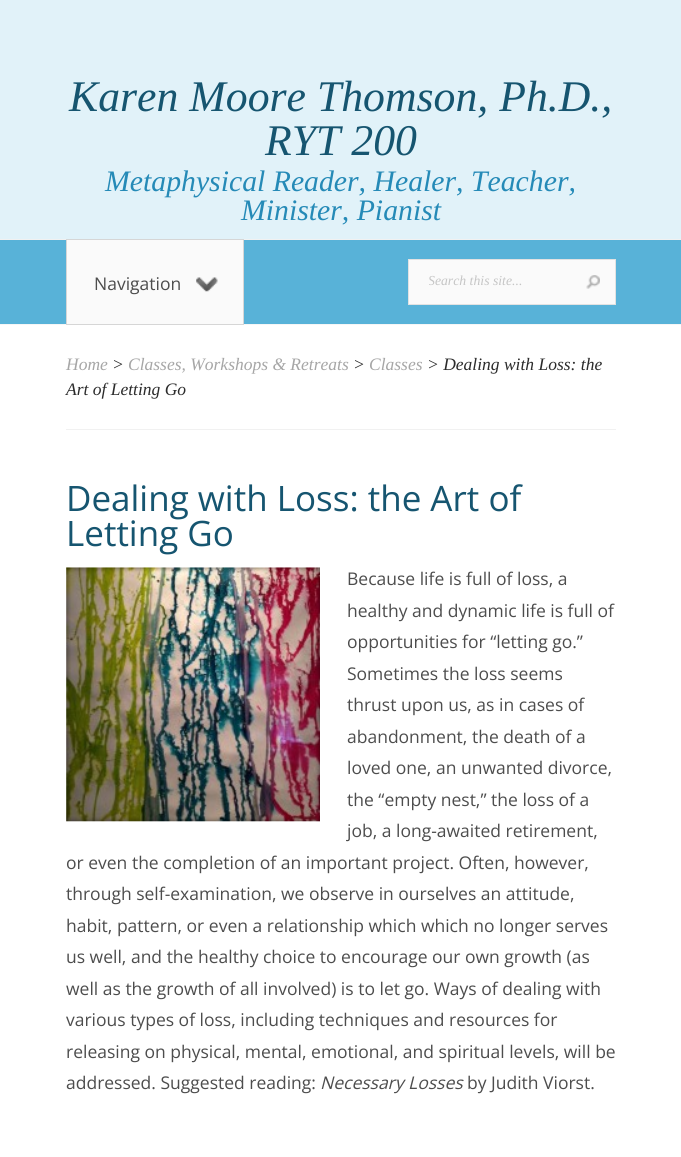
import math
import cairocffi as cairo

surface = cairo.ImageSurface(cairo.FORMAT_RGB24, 681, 1157)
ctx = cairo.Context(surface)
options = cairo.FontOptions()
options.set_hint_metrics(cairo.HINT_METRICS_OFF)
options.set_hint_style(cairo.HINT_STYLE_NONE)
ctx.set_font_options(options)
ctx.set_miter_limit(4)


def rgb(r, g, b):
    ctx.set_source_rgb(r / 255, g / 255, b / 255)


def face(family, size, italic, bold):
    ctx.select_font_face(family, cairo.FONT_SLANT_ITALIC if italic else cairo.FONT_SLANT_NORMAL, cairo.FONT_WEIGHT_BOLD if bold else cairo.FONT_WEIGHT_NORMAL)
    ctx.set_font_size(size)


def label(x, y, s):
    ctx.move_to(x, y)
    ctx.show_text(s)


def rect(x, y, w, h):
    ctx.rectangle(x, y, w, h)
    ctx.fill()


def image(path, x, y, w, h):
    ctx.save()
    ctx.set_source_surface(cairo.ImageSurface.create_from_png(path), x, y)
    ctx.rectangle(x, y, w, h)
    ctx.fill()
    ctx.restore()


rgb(255, 255, 255)
ctx.paint()
rgb(225, 242, 249)
rect(0, 0, 681, 239)
face('Liberation Serif', 43.75, 1, 0)
rgb(22, 85, 112)
label(69, 111, 'Karen Moore Thomson, Ph.D.,')
label(265, 155, 'RYT 200')
face('Liberation Serif', 29.75, 1, 0)
rgb(37, 138, 183)
label(105, 191, 'Metaphysical Reader, Healer, Teacher,')
label(241, 220, 'Minister, Pianist')
rgb(88, 178, 216)
rect(0, 240, 681, 84)
rgb(241, 241, 241)
rect(0, 239, 681, 1)
rgb(246, 246, 246)
rect(0, 324, 681, 1)
rgb(250, 250, 250)
ctx.rectangle(66.5, 239.5, 177, 85)
ctx.fill_preserve()
rgb(214, 214, 214)
ctx.set_line_width(1)
ctx.stroke()
face('Open Sans', 17.5, 0, 0)
rgb(77, 77, 77)
label(94, 290, 'Navigation')
image('image0.png', 196, 277, 22, 15)
rgb(250, 250, 250)
ctx.rectangle(408.5, 259.5, 207, 45)
ctx.fill_preserve()
rgb(226, 226, 226)
ctx.stroke()
ctx.save()
ctx.rectangle(429, 273, 137, 15)
ctx.clip()
face('Liberation Serif', 13.75, 1, 0)
rgb(197, 197, 197)
label(428, 285, 'Search this site...')
ctx.restore()
image('image1.png', 586, 275, 14, 14)
rgb(241, 241, 241)
rect(66, 429, 550, 1)
face('Liberation Serif', 17.5, 1, 0)
rgb(166, 166, 166)
label(66, 370, 'Home')
rgb(43, 43, 43)
label(112, 370, '>')
rgb(166, 166, 166)
label(128, 370, 'Classes, Workshops & Retreats')
rgb(43, 43, 43)
label(353, 370, '>')
rgb(166, 166, 166)
label(369, 370, 'Classes')
rgb(43, 43, 43)
label(427, 370, '> Dealing with Loss: the')
label(66, 395, 'Art of Letting Go')
face('Open Sans', 35, 0, 0)
rgb(22, 85, 112)
label(66, 511, 'Dealing with Loss: the Art of')
label(66, 546, 'Letting Go')
image('image2.png', 66, 567, 254, 255)
image('image3.png', 66, 567, 254, 255)
face('Open Sans', 17.5, 0, 0)
rgb(77, 77, 77)
label(347, 585, 'Because life is full of loss, a')
label(347, 617, 'healthy and dynamic life is full of')
label(347, 648, 'opportunities for “letting go.”')
label(347, 680, 'Sometimes the loss seems')
label(347, 711, 'thrust upon us, as in cases of')
label(347, 743, 'abandonment, the death of a')
label(347, 774, 'loved one, an unwanted divorce,')
label(347, 806, 'the “empty nest,” the loss of a')
label(347, 837, 'job, a long-awaited retirement,')
label(66, 869, 'or even the completion of an important project. Often, however,')
label(66, 900, 'through self-examination, we observe in ourselves an attitude,')
label(66, 932, 'habit, pattern, or even a relationship which which no longer serves')
label(66, 963, 'us well, and the healthy choice to encourage our own growth (as')
label(66, 995, 'well as the growth of all involved) is to let go. Ways of dealing with')
label(66, 1026, 'various types of loss, including techniques and resources for')
label(66, 1058, 'releasing on physical, mental, emotional, and spiritual levels, will be')
label(66, 1089, 'addressed. Suggested reading:')
face('Open Sans', 17.5, 1, 0)
label(320, 1089, 'Necessary Losses')
face('Open Sans', 17.5, 0, 0)
label(467, 1089, 'by Judith Viorst.')
surface.write_to_png('render.png')
